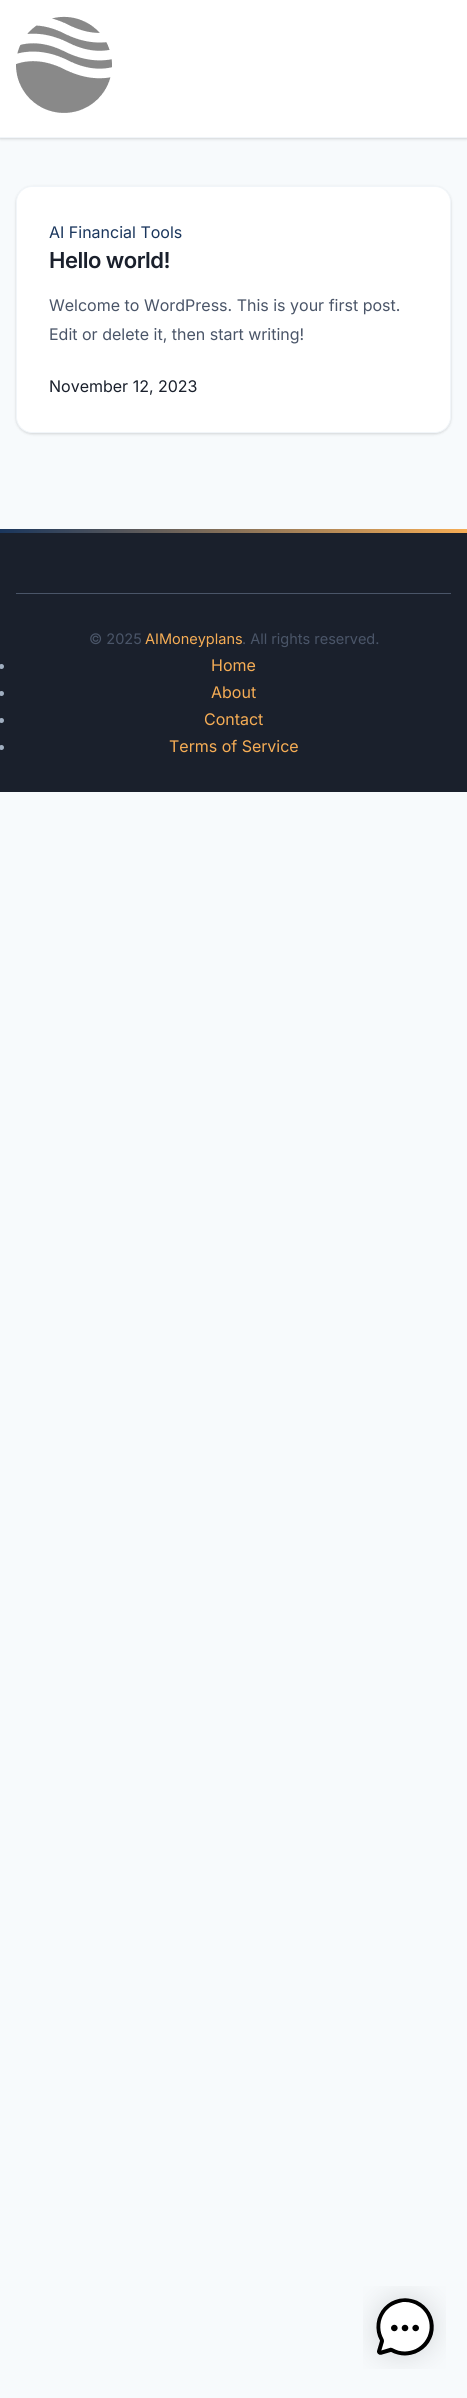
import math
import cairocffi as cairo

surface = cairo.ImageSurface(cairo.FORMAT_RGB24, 467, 2398)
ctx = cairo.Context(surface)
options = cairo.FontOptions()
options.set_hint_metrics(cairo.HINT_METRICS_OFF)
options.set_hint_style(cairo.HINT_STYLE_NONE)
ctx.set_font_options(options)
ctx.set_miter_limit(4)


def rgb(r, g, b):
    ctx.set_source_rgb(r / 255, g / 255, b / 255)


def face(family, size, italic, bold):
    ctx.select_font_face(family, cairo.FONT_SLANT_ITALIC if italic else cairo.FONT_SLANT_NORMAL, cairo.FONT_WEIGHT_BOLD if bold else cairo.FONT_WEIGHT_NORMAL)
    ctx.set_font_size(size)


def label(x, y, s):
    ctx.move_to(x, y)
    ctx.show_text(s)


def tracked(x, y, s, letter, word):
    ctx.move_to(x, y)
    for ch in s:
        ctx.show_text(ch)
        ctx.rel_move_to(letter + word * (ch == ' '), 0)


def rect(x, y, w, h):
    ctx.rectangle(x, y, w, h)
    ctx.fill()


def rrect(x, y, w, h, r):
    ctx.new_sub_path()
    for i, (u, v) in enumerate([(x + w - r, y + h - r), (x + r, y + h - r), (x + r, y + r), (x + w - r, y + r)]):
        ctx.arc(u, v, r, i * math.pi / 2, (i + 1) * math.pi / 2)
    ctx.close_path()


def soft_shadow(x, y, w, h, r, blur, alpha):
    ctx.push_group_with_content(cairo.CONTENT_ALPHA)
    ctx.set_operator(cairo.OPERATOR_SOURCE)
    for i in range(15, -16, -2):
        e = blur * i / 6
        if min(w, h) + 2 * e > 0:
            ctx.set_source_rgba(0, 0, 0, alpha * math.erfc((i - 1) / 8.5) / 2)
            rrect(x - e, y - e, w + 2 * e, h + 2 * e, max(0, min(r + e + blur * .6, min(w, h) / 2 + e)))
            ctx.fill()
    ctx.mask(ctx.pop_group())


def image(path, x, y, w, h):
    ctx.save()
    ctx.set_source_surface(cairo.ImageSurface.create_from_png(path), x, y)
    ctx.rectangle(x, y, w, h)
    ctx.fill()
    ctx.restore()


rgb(247, 250, 252)
ctx.paint()
rgb(0, 0, 0)
soft_shadow(0, 1, 467, 138, 0, 1, 0.06)
soft_shadow(0, 1, 467, 138, 0, 1.5, 0.1)
rgb(255, 255, 255)
rect(0, 0, 467, 137)
rgb(241, 245, 249)
rect(0, 137, 467, 1)
image('image0.png', 16, 16, 96, 97)
rgb(0, 0, 0)
soft_shadow(16, 187, 435, 247, 16, 1, 0.06)
soft_shadow(16, 187, 435, 247, 16, 1.5, 0.1)
rgb(255, 255, 255)
rrect(16.5, 186.5, 434, 246, 15.5)
ctx.fill_preserve()
rgb(241, 245, 249)
ctx.set_line_width(1)
ctx.stroke()
face('Inter', 16, 0, 0)
rgb(26, 54, 93)
label(49, 238, 'AI Financial Tools')
face('Inter SemiBold', 22, 0, 0)
rgb(26, 32, 44)
tracked(49, 268, 'Hello world!', -0.5, 0)
face('Inter', 16, 0, 0)
rgb(74, 85, 104)
label(49, 311, 'Welcome to WordPress. This is your first post.')
label(49, 340, 'Edit or delete it, then start writing!')
rgb(26, 32, 44)
label(49, 392, 'November 12, 2023')
rect(0, 533, 467, 259)
gradient = cairo.LinearGradient(0, 531, 467, 531)
gradient.add_color_stop_rgba(0, 0.102, 0.212, 0.365, 1)
gradient.add_color_stop_rgba(1, 0.965, 0.678, 0.333, 1)
ctx.set_source(gradient)
rect(0, 529, 467, 4)
rgb(74, 85, 104)
rect(16, 593, 435, 1)
face('Inter', 14.5, 0, 0)
label(89, 644, '© 2025')
rgb(246, 173, 85)
label(145, 644, 'AIMoneyplans')
rgb(74, 85, 104)
label(242, 644, '. All rights reserved.')
rgb(160, 174, 192)
ctx.new_path()
ctx.arc(1.5, 666.5, 2.5, 0, 2 * math.pi)
ctx.fill()
face('Inter', 16, 0, 0)
rgb(246, 173, 85)
label(211, 671, 'Home')
rgb(160, 174, 192)
ctx.new_path()
ctx.arc(1.5, 693.5, 2.5, 0, 2 * math.pi)
ctx.fill()
rgb(246, 173, 85)
label(211, 698, 'About')
rgb(160, 174, 192)
ctx.new_path()
ctx.arc(1.5, 720.5, 2.5, 0, 2 * math.pi)
ctx.fill()
rgb(246, 173, 85)
label(204, 725, 'Contact')
rgb(160, 174, 192)
ctx.new_path()
ctx.arc(1.5, 747.5, 2.5, 0, 2 * math.pi)
ctx.fill()
rgb(246, 173, 85)
label(169, 752, 'Terms of Service')
image('image1.png', 363, 2286, 83, 83)
surface.write_to_png('render.png')
